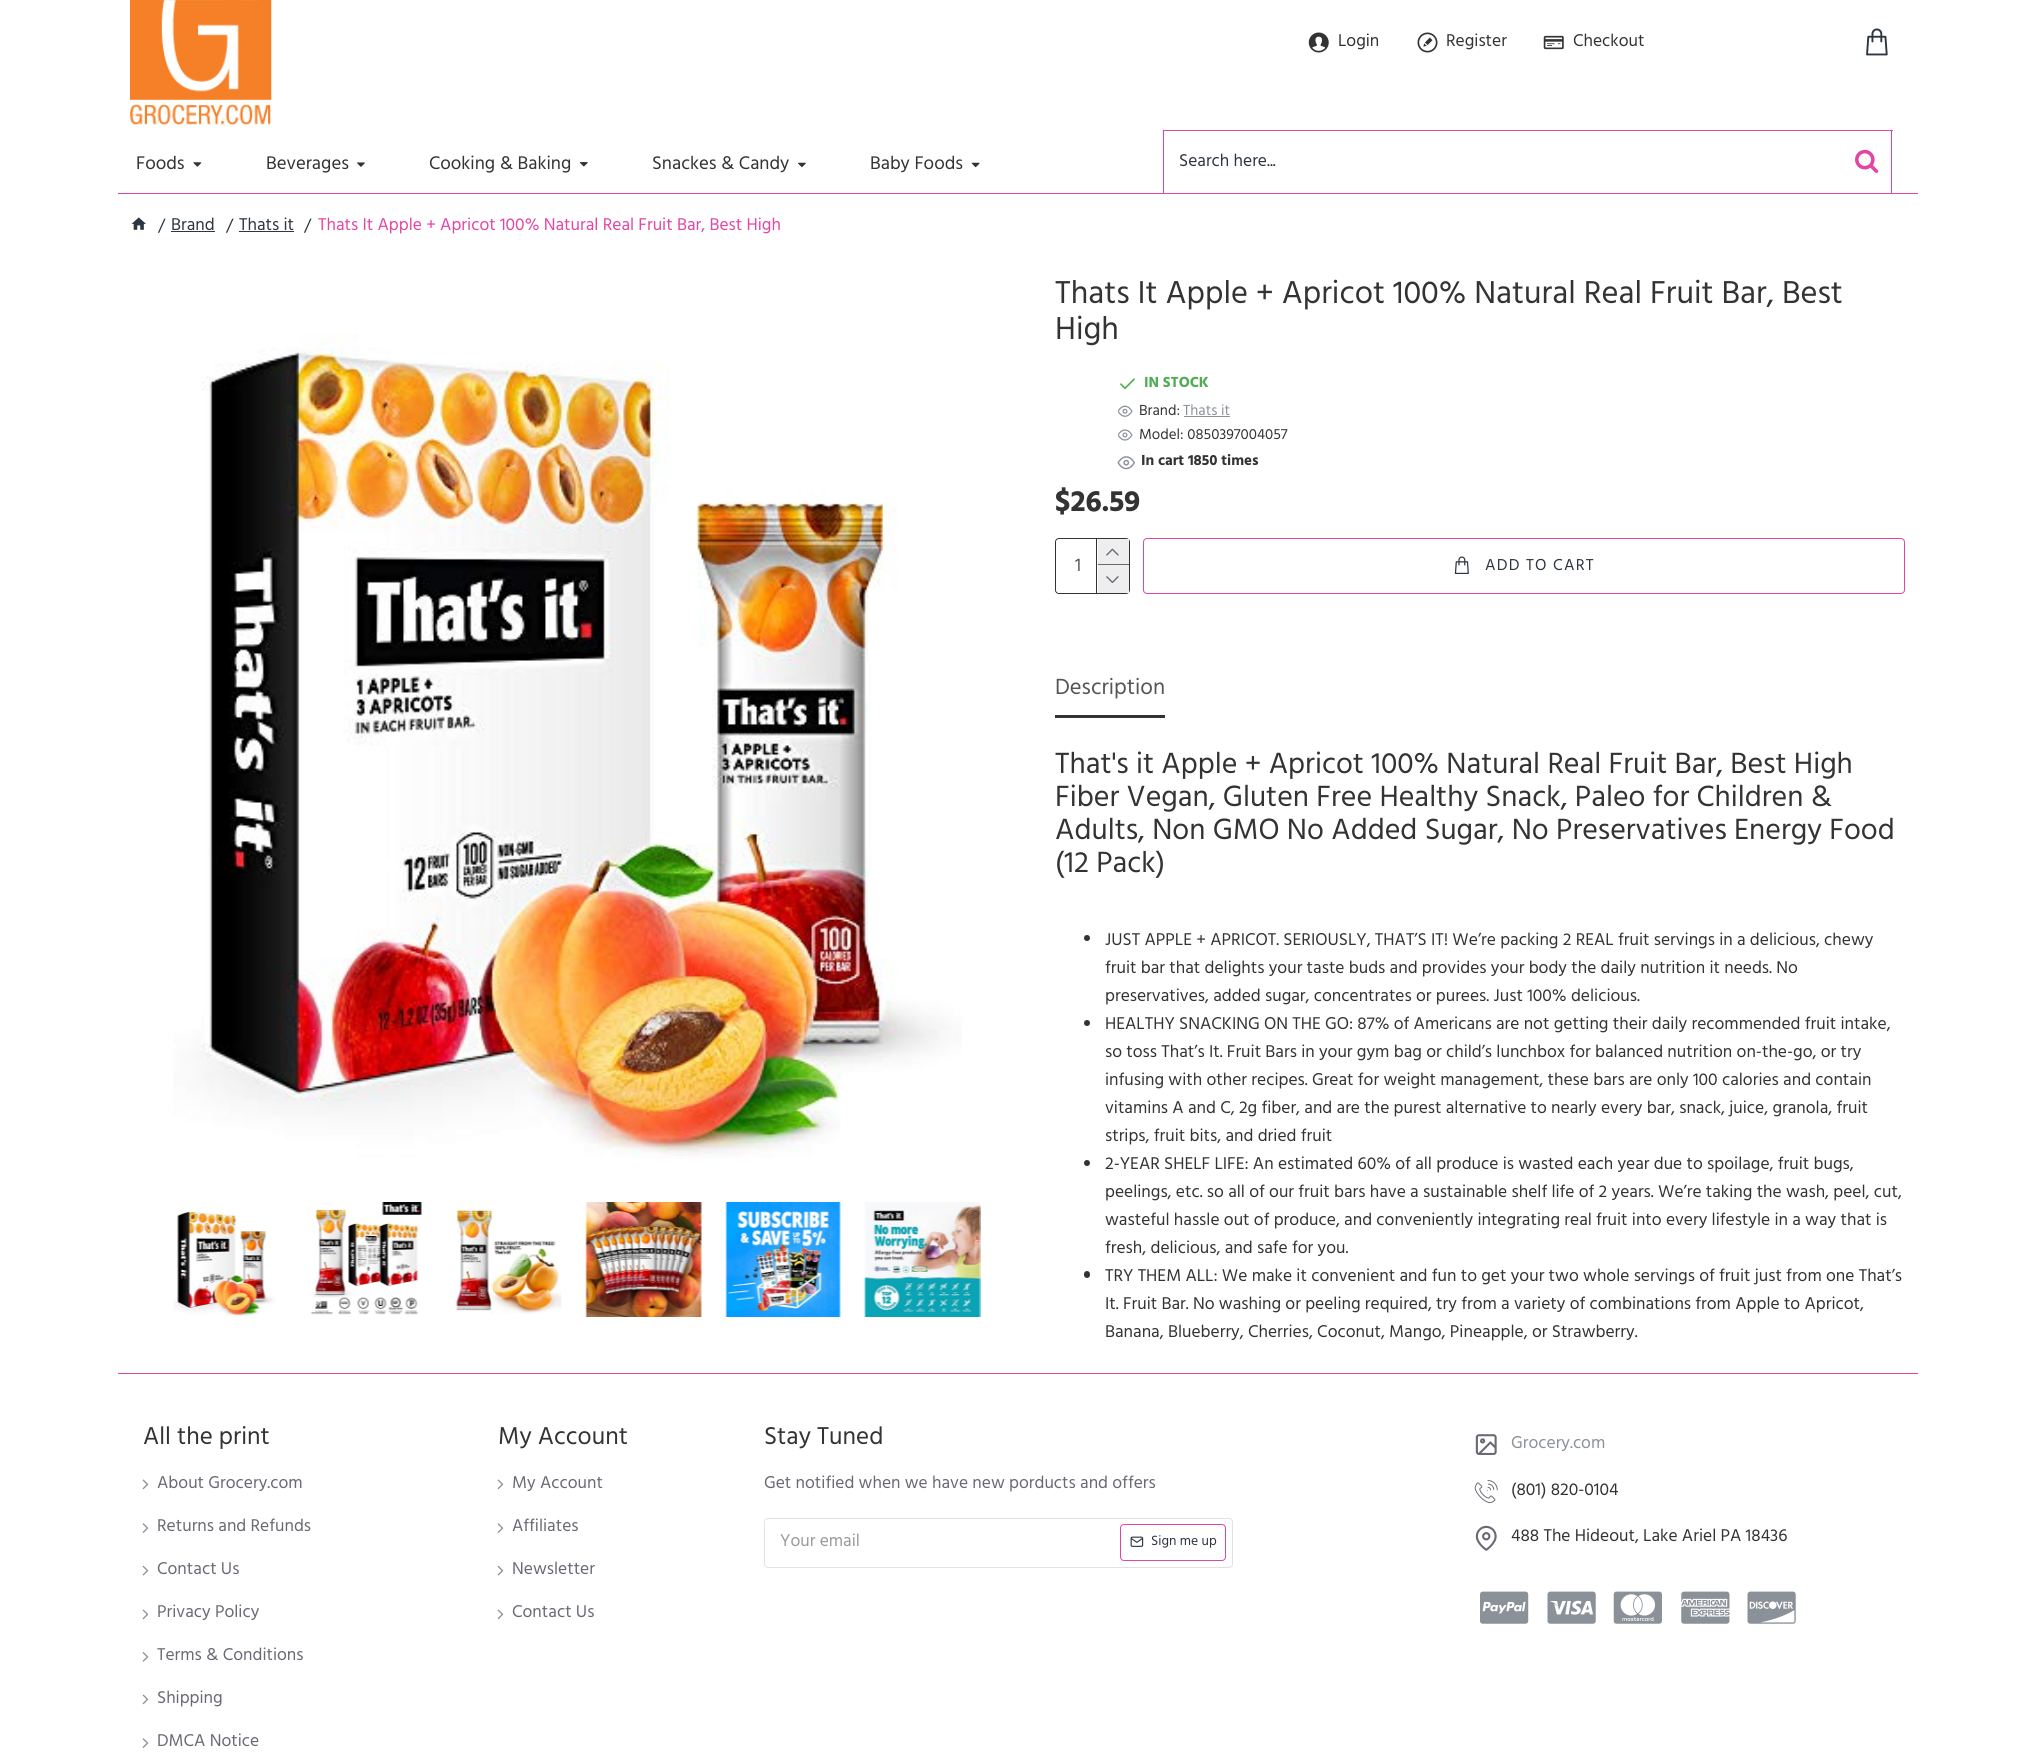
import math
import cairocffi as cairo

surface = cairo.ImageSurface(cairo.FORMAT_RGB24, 2034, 1759)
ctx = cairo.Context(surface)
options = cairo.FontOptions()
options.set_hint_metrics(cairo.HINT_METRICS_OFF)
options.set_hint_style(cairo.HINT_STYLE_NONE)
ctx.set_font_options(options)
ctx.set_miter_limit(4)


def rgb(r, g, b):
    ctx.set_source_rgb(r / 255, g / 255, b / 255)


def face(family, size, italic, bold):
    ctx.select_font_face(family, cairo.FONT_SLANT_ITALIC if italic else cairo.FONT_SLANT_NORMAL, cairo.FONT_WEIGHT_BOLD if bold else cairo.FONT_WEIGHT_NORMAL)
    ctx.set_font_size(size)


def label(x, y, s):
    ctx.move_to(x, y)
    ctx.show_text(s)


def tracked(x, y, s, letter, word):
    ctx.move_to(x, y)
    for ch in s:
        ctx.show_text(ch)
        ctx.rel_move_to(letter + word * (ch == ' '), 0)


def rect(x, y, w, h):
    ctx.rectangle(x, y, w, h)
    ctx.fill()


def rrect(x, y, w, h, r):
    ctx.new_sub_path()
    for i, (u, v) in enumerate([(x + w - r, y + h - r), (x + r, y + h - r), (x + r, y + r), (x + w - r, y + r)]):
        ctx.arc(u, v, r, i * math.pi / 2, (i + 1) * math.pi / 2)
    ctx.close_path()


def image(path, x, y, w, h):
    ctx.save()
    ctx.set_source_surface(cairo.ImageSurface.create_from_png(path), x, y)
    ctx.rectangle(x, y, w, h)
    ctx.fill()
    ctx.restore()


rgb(255, 255, 255)
ctx.paint()
rgb(227, 69, 163)
rect(118, 193, 1800, 1)
image('image0.png', 130, 0, 142, 125)
image('image1.png', 1308, 32, 21, 21)
face('Hind', 17.5, 0, 0)
rgb(51, 51, 51)
label(1338, 46, 'Login')
image('image2.png', 1417, 32, 21, 21)
label(1446, 46, 'Register')
image('image3.png', 1543, 35, 21, 15)
label(1573, 46, 'Checkout')
image('image4.png', 1866, 28, 22, 28)
face('Hind', 18.75, 0, 0)
label(136, 169, 'Foods')
image('image5.png', 193, 162, 9, 5)
label(266, 169, 'Beverages')
image('image6.png', 357, 162, 8, 5)
label(429, 169, 'Cooking & Baking')
image('image7.png', 579, 162, 9, 5)
label(652, 169, 'Snackes & Candy')
image('image8.png', 798, 162, 8, 6)
label(870, 169, 'Baby Foods')
image('image9.png', 971, 162, 9, 6)
rgb(227, 69, 163)
rect(1163, 130, 730, 1)
rect(1891, 130, 1, 63)
rect(1163, 130, 1, 63)
face('Hind', 17.5, 0, 0)
rgb(44, 54, 64)
label(1179, 166, 'Search here...')
image('image10.png', 1855, 149, 24, 24)
image('image11.png', 131, 217, 15, 13)
label(158, 231, '/')
label(171, 230, 'Brand')
rect(171, 231, 44, 1)
label(226, 231, '/')
label(239, 230, 'Thats it')
rect(239, 231, 55, 1)
label(304, 231, '/')
rgb(227, 69, 163)
label(318, 230, 'Thats It Apple + Apricot 100% Natural Real Fruit Bar, Best High')
image('image12.png', 173, 333, 789, 826)
image('image13.png', 173, 1211, 103, 105)
image('image14.png', 310, 1202, 112, 113)
image('image15.png', 454, 1209, 108, 105)
image('image16.png', 585, 1202, 117, 115)
image('image17.png', 725, 1202, 116, 115)
image('image18.png', 864, 1202, 117, 115)
face('Hind', 32.5, 0, 0)
rgb(51, 51, 51)
label(1055, 303, 'Thats It Apple + Apricot 100% Natural Real Fruit Bar, Best')
label(1055, 339, 'High')
image('image19.png', 1120, 378, 15, 12)
face('Hind', 15, 0, 1)
rgb(80, 173, 85)
label(1144, 387, 'IN STOCK')
image('image20.png', 1118, 405, 15, 12)
face('Hind', 15, 0, 0)
rgb(51, 51, 51)
label(1139, 415, 'Brand:')
rgb(139, 145, 152)
label(1183, 415, 'Thats it')
rect(1184, 416, 46, 1)
image('image21.png', 1118, 429, 15, 12)
rgb(51, 51, 51)
label(1139, 439, 'Model: 0850397004057')
image('image22.png', 1117, 456, 18, 14)
face('Hind', 15, 0, 1)
label(1141, 465, 'In cart 1850 times')
face('Hind', 30, 0, 1)
label(1055, 511, '$26.59')
rrect(1055.5, 538.5, 74, 55, 3.5)
ctx.set_line_width(1)
ctx.stroke()
rgb(255, 255, 255)
rrect(1056, 539, 73, 54, 4)
ctx.fill()
face('Hind', 18.75, 0, 0)
rgb(85, 85, 85)
label(1075, 571, '1')
rgb(51, 51, 51)
rect(1096, 539, 1, 54)
rgb(238, 238, 238)
rect(1098, 539, 31, 25)
rgb(105, 105, 115)
rect(1098, 564, 31, 1)
image('image23.png', 1106, 548, 13, 8)
rgb(238, 238, 238)
rect(1098, 565, 31, 28)
image('image24.png', 1106, 576, 13, 7)
rrect(1143.5, 538.5, 761, 55, 3.5)
rgb(227, 69, 163)
ctx.stroke()
image('image25.png', 1454, 556, 15, 18)
face('Hind', 16.25, 0, 0)
rgb(44, 54, 64)
tracked(1485, 570, 'ADD TO CART', 1.25, 0)
rgb(51, 51, 51)
rect(1055, 715, 110, 3)
face('Hind', 22.5, 0, 0)
rgb(85, 85, 85)
label(1055, 694, 'Description')
face('Hind', 30, 0, 0)
rgb(51, 51, 51)
label(1055, 773, 'That\'s it Apple + Apricot 100% Natural Real Fruit Bar, Best High')
label(1055, 806, 'Fiber Vegan, Gluten Free Healthy Snack, Paleo for Children &')
label(1055, 839, 'Adults, Non GMO No Added Sugar, No Preservatives Energy Food')
label(1055, 872, '(12 Pack)')
ctx.new_path()
ctx.arc(1087, 938, 3, 0, 2 * math.pi)
ctx.fill()
face('Hind', 17.5, 0, 0)
label(1105, 945, 'JUST APPLE + APRICOT. SERIOUSLY, THAT’S IT! We’re packing 2 REAL fruit servings in a delicious, chewy')
label(1105, 973, 'fruit bar that delights your taste buds and provides your body the daily nutrition it needs. No')
label(1105, 1001, 'preservatives, added sugar, concentrates or purees. Just 100% delicious.')
ctx.new_path()
ctx.arc(1087, 1023, 3, 0, 2 * math.pi)
ctx.fill()
label(1105, 1029, 'HEALTHY SNACKING ON THE GO: 87% of Americans are not getting their daily recommended fruit intake,')
label(1105, 1057, 'so toss That’s It. Fruit Bars in your gym bag or child’s lunchbox for balanced nutrition on-the-go, or try')
label(1105, 1085, 'infusing with other recipes. Great for weight management, these bars are only 100 calories and contain')
label(1105, 1113, 'vitamins A and C, 2g fiber, and are the purest alternative to nearly every bar, snack, juice, granola, fruit')
label(1105, 1141, 'strips, fruit bits, and dried fruit')
ctx.new_path()
ctx.arc(1087, 1163, 3, 0, 2 * math.pi)
ctx.fill()
label(1105, 1169, '2-YEAR SHELF LIFE: An estimated 60% of all produce is wasted each year due to spoilage, fruit bugs,')
label(1105, 1197, 'peelings, etc. so all of our fruit bars have a sustainable shelf life of 2 years. We’re taking the wash, peel, cut,')
label(1105, 1225, 'wasteful hassle out of produce, and conveniently integrating real fruit into every lifestyle in a way that is')
label(1105, 1253, 'fresh, delicious, and safe for you.')
rrect(1084, 1271, 6, 7, 3)
ctx.fill()
label(1105, 1281, 'TRY THEM ALL: We make it convenient and fun to get your two whole servings of fruit just from one That’s')
label(1105, 1309, 'It. Fruit Bar. No washing or peeling required, try from a variety of combinations from Apple to Apricot,')
label(1105, 1337, 'Banana, Blueberry, Cherries, Coconut, Mango, Pineapple, or Strawberry.')
rgb(227, 69, 163)
rect(118, 1373, 1800, 1)
face('Hind', 25, 0, 0)
rgb(51, 51, 51)
label(143, 1444, 'All the print')
image('image26.png', 142, 1479, 7, 11)
face('Hind', 17.5, 0, 0)
rgb(105, 105, 115)
label(157, 1488, 'About Grocery.com')
image('image27.png', 142, 1523, 7, 10)
label(157, 1531, 'Returns and Refunds')
image('image28.png', 142, 1565, 7, 11)
label(157, 1574, 'Contact Us')
image('image26.png', 142, 1609, 7, 11)
label(157, 1617, 'Privacy Policy')
image('image29.png', 142, 1652, 7, 10)
label(157, 1660, 'Terms & Conditions')
image('image26.png', 142, 1694, 7, 11)
label(157, 1703, 'Shipping')
image('image27.png', 142, 1738, 7, 10)
label(157, 1746, 'DMCA Notice')
face('Hind', 25, 0, 0)
rgb(51, 51, 51)
label(498, 1444, 'My Account')
image('image26.png', 497, 1479, 7, 11)
face('Hind', 17.5, 0, 0)
rgb(105, 105, 115)
label(512, 1488, 'My Account')
image('image27.png', 497, 1523, 7, 10)
label(512, 1531, 'Affiliates')
image('image28.png', 497, 1565, 7, 11)
label(512, 1574, 'Newsletter')
image('image26.png', 497, 1609, 7, 11)
label(512, 1617, 'Contact Us')
face('Hind', 25, 0, 0)
rgb(51, 51, 51)
label(764, 1444, 'Stay Tuned')
face('Hind', 17.5, 0, 0)
rgb(105, 105, 115)
label(764, 1488, 'Get notified when we have new porducts and offers')
rrect(764.5, 1518.5, 468, 49, 3.5)
rgb(226, 226, 226)
ctx.stroke()
rgb(153, 153, 153)
label(780, 1546, 'Your email')
rrect(1120.5, 1524.5, 105, 36, 3.5)
rgb(227, 69, 163)
ctx.stroke()
image('image30.png', 1130, 1536, 14, 11)
face('Hind', 13.75, 0, 0)
rgb(44, 54, 64)
label(1151, 1545, 'Sign me up')
image('image31.png', 1475, 1434, 22, 21)
face('Hind', 17.5, 0, 0)
rgb(139, 145, 152)
label(1511, 1448, 'Grocery.com')
image('image32.png', 1474, 1480, 24, 24)
rgb(51, 51, 51)
label(1511, 1495, '(801) 820-0104')
image('image33.png', 1475, 1525, 22, 26)
label(1511, 1541, '488 The Hideout, Lake Ariel PA 18436')
image('image34.png', 1480, 1591, 49, 33)
image('image35.png', 1547, 1591, 49, 33)
image('image36.png', 1613, 1591, 49, 33)
image('image37.png', 1681, 1591, 49, 33)
image('image38.png', 1747, 1591, 49, 33)
surface.write_to_png('render.png')
